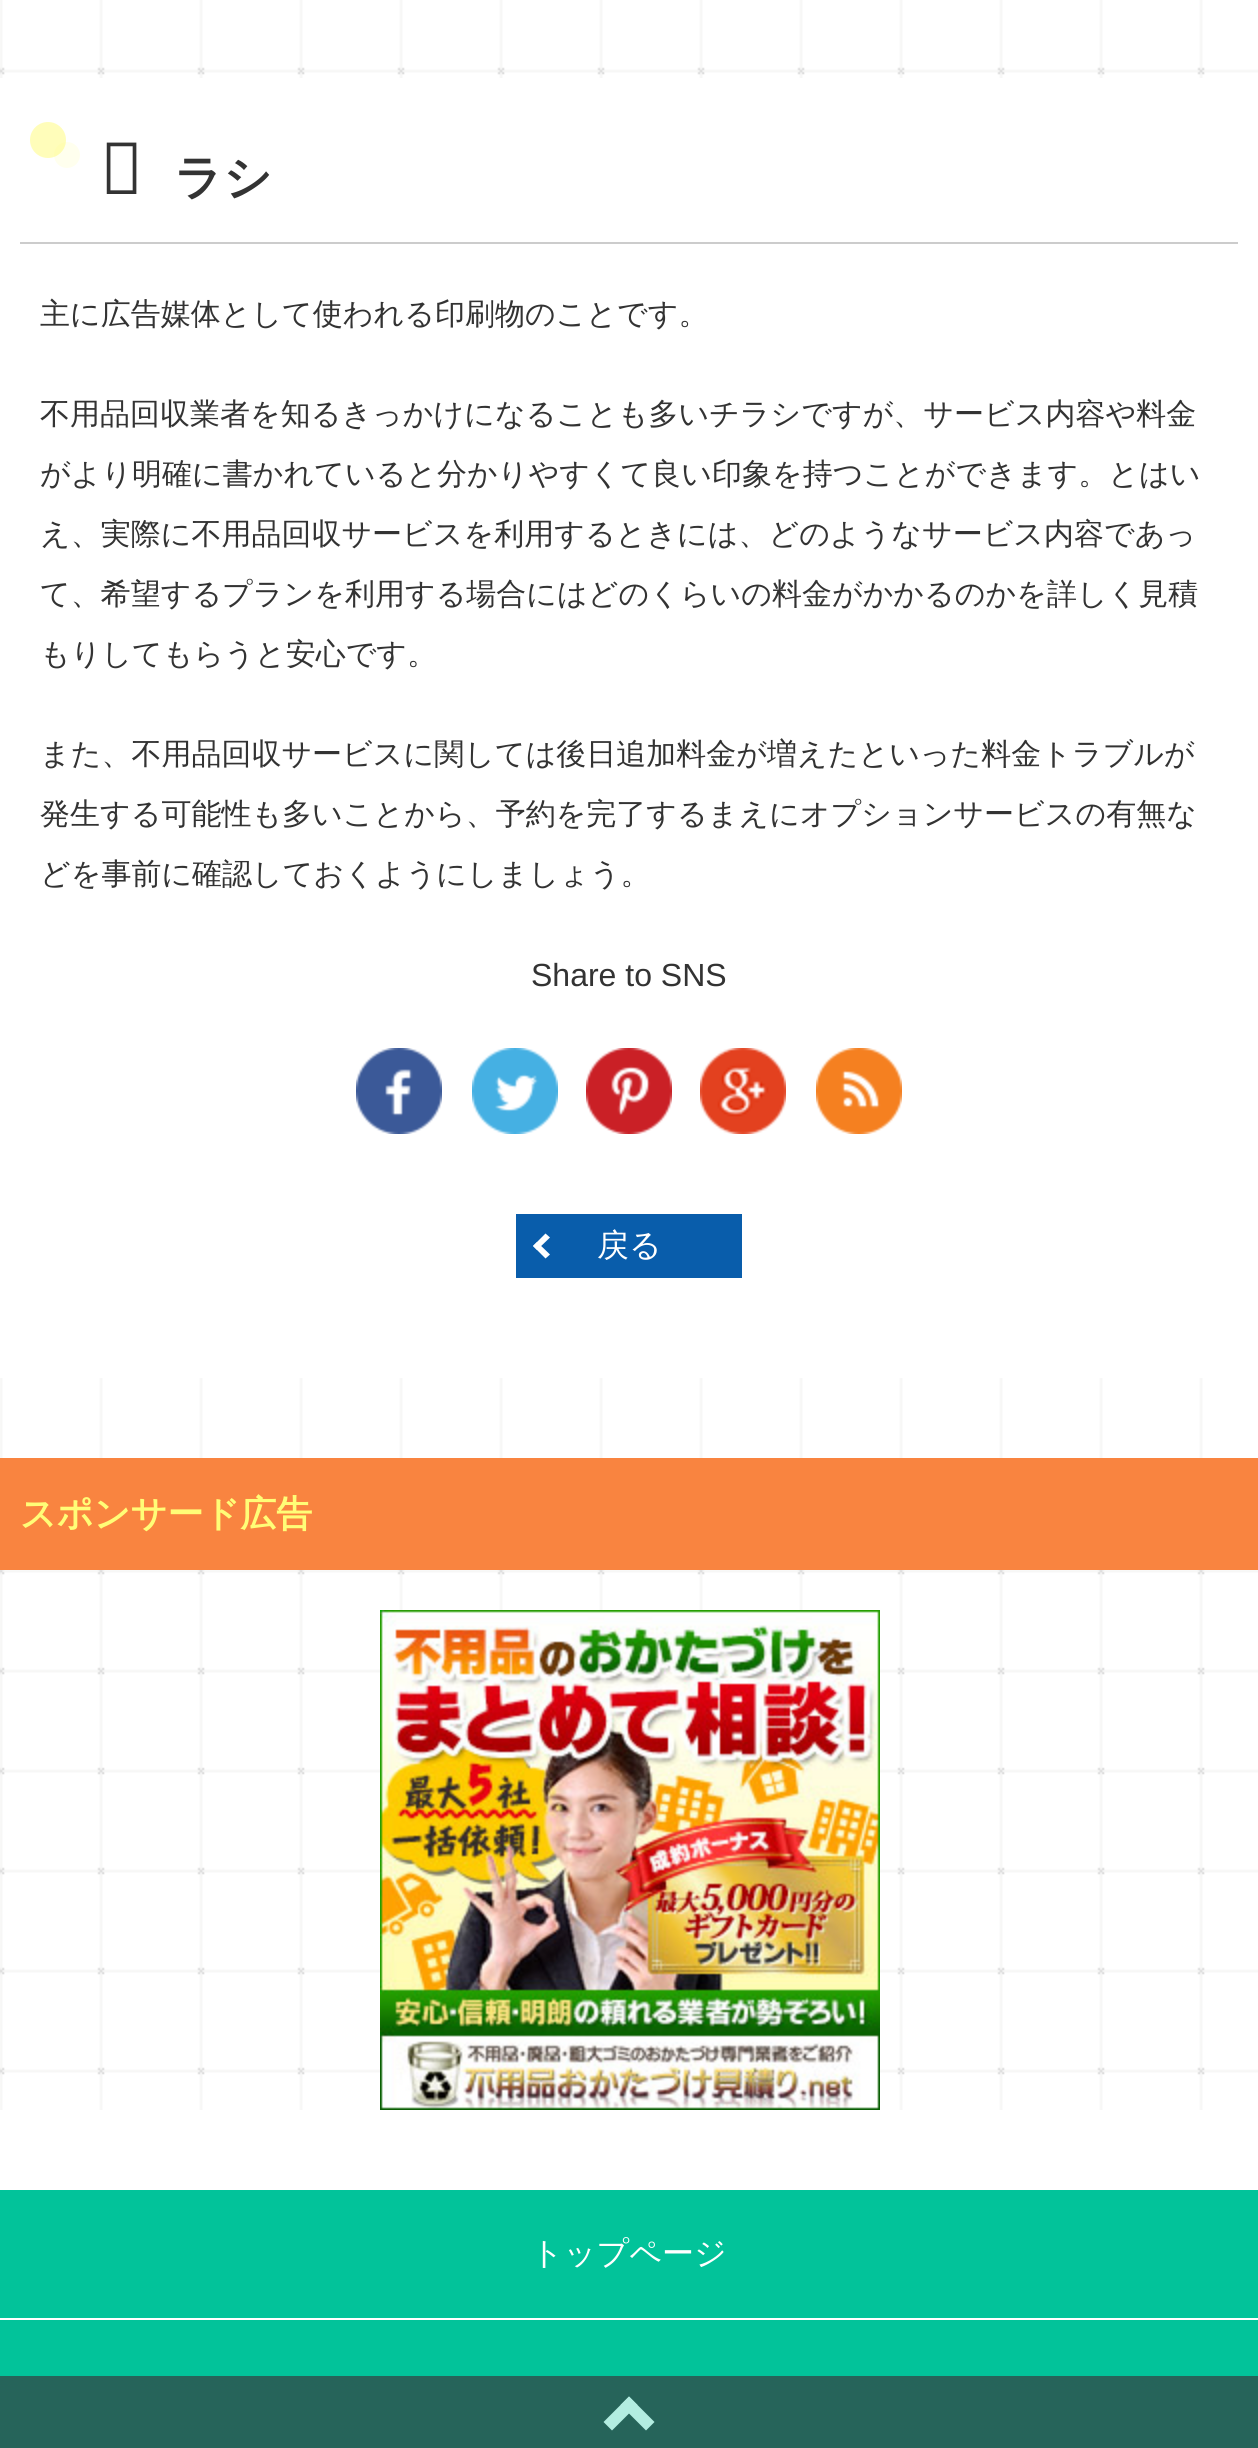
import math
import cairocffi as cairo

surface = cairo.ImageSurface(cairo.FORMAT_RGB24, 1258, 2448)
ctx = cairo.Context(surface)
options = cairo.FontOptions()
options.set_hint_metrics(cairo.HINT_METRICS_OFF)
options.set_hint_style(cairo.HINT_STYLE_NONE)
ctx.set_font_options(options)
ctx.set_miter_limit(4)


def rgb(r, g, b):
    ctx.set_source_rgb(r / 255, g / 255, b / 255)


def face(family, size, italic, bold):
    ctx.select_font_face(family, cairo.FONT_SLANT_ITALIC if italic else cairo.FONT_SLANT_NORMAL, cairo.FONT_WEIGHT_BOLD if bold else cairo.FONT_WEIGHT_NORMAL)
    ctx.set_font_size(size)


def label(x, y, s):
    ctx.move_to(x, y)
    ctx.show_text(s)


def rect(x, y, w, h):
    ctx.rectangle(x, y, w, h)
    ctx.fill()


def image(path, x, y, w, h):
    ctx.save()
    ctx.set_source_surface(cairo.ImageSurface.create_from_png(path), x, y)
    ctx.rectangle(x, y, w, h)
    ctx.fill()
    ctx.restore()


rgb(255, 255, 255)
ctx.paint()
image('image0.png', 0, 0, 1258, 2110)
rgb(255, 255, 255)
rect(0, 78, 1258, 1300)
rgb(204, 204, 204)
rect(20, 242, 1218, 2)
rgb(255, 255, 238)
ctx.arc(67, 155, 13, 0, 2 * math.pi)
ctx.fill()
ctx.set_source_rgba(1, 0.992, 0.467, 0.5)
ctx.arc(48, 140, 18, 0, 2 * math.pi)
ctx.fill()
face('Noto Sans Thin', 72, 0, 0)
rgb(51, 51, 51)
label(100, 194, 'チ')
face('WenQuanYi Zen Hei', 48, 0, 1)
label(174, 194, 'ラシ')
face('WenQuanYi Zen Hei Medium', 30, 0, 0)
label(40, 324, '主に広告媒体として使われる印刷物のことです。')
label(40, 424, '不用品回収業者を知るきっかけになることも多いチラシですが、サービス内容や料金')
label(40, 484, 'がより明確に書かれていると分かりやすくて良い印象を持つことができます。とはい')
label(40, 544, 'え、実際に不用品回収サービスを利用するときには、どのようなサービス内容であっ')
label(40, 604, 'て、希望するプランを利用する場合にはどのくらいの料金がかかるのかを詳しく見積')
label(40, 664, 'もりしてもらうと安心です。')
label(40, 764, 'また、不用品回収サービスに関しては後日追加料金が増えたといった料金トラブルが')
label(40, 824, '発生する可能性も多いことから、予約を完了するまえにオプションサービスの有無な')
label(40, 884, 'どを事前に確認しておくようにしましょう。')
face('Liberation Sans', 32, 0, 0)
label(531, 986, 'Share to SNS')
image('image1.png', 356, 1048, 86, 86)
image('image2.png', 472, 1048, 86, 86)
image('image3.png', 586, 1048, 86, 86)
image('image4.png', 700, 1048, 86, 86)
image('image5.png', 816, 1048, 86, 86)
rgb(9, 93, 171)
rect(516, 1214, 226, 64)
rgb(255, 255, 255)
ctx.new_path()
ctx.move_to(545.5, 1258.5)
ctx.line_to(533, 1246)
ctx.line_to(537, 1242)
ctx.line_to(550, 1254.5)
ctx.close_path()
ctx.fill()
ctx.new_path()
ctx.move_to(537, 1250)
ctx.line_to(533, 1246)
ctx.line_to(545.5, 1233.5)
ctx.line_to(550, 1237.5)
ctx.close_path()
ctx.fill()
face('WenQuanYi Zen Hei Medium', 32, 0, 0)
label(597, 1256, '戻る')
rgb(249, 132, 64)
rect(0, 1458, 1258, 112)
face('WenQuanYi Zen Hei', 36, 0, 1)
rgb(255, 253, 119)
label(20, 1526, 'スポンサード広告')
image('image6.png', 380, 1610, 500, 500)
rgb(2, 195, 154)
rect(0, 2190, 1258, 128)
face('WenQuanYi Zen Hei Medium', 32, 0, 0)
rgb(255, 255, 255)
label(531, 2264, 'トップページ')
rgb(2, 195, 154)
rect(0, 2320, 1258, 128)
ctx.set_source_rgba(0.208, 0.235, 0.247, 0.7)
rect(0, 2376, 1258, 72)
rgb(179, 237, 225)
ctx.new_path()
ctx.move_to(603.5, 2422)
ctx.line_to(629, 2396.5)
ctx.line_to(637.5, 2405)
ctx.line_to(612, 2430.5)
ctx.close_path()
ctx.fill()
ctx.new_path()
ctx.move_to(620.5, 2405)
ctx.line_to(629, 2396.5)
ctx.line_to(654.5, 2422)
ctx.line_to(646, 2430.5)
ctx.close_path()
ctx.fill()
surface.write_to_png('render.png')
